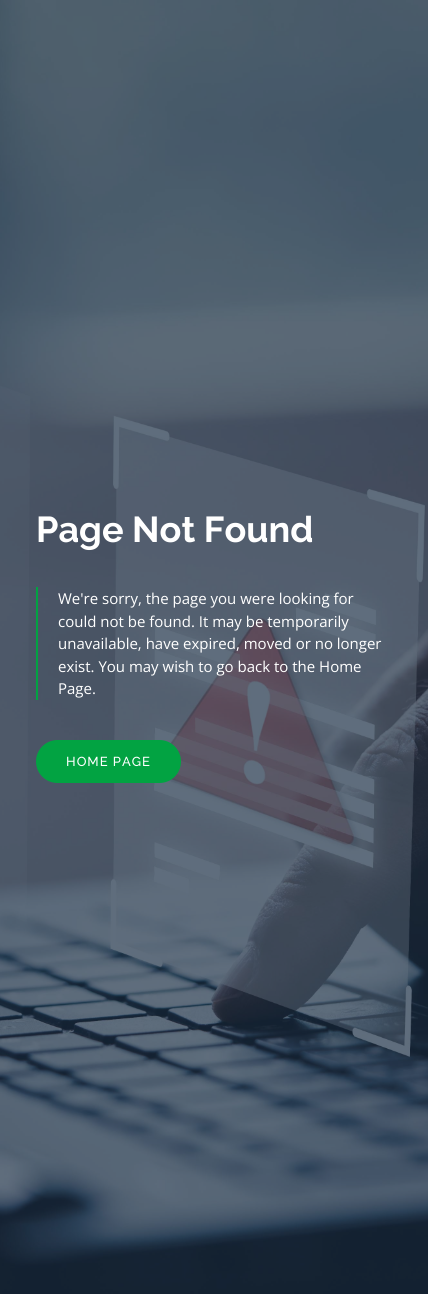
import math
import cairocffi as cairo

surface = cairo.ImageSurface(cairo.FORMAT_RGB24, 428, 1294)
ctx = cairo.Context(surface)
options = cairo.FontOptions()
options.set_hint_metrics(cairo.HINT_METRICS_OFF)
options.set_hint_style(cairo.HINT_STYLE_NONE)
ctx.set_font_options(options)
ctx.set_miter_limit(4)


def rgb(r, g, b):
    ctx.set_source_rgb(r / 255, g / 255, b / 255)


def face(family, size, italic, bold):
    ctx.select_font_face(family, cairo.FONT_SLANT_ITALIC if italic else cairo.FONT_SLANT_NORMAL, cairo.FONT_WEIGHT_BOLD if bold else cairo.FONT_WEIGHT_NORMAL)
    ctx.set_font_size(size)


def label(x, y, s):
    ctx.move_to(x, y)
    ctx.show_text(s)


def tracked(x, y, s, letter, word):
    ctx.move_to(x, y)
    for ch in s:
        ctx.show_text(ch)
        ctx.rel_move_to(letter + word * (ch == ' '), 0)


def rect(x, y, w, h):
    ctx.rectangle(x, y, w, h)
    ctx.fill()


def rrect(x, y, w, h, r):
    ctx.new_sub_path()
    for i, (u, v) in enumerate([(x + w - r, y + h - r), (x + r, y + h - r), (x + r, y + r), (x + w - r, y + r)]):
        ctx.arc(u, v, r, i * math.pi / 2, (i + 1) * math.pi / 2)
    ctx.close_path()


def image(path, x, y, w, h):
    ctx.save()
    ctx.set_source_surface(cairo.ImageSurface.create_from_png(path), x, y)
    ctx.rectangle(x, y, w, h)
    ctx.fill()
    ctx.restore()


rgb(255, 255, 255)
ctx.paint()
image('image0.png', 0, 0, 428, 1294)
face('Raleway', 36, 0, 1)
rgb(255, 255, 255)
label(36, 542, 'Page Not Found')
rgb(2, 163, 66)
rect(36, 587, 2, 113)
face('Open Sans', 15, 0, 0)
rgb(255, 255, 255)
label(58, 604, 'We\'re sorry, the page you were looking for')
label(58, 627, 'could not be found. It may be temporarily')
label(58, 649, 'unavailable, have expired, moved or no longer')
label(58, 672, 'exist. You may wish to go back to the Home')
label(58, 694, 'Page.')
rgb(2, 163, 66)
rrect(36, 740, 145, 43, 21.5)
ctx.fill()
face('Raleway Medium', 13, 0, 0)
rgb(255, 255, 255)
tracked(66, 766, 'HOME PAGE', 1, 0)
surface.write_to_png('render.png')
